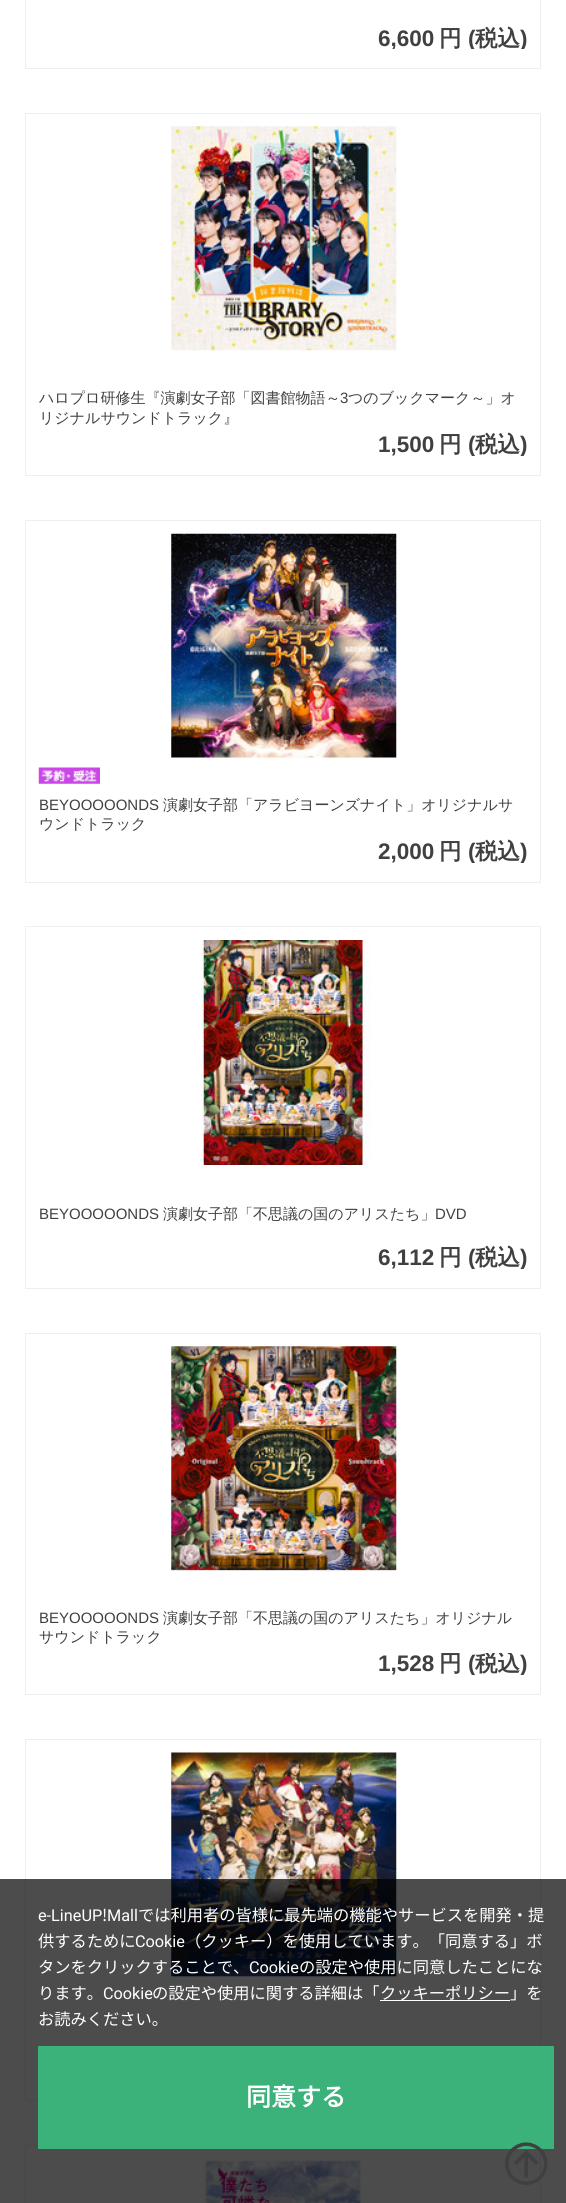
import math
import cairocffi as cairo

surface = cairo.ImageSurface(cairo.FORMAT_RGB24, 566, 2203)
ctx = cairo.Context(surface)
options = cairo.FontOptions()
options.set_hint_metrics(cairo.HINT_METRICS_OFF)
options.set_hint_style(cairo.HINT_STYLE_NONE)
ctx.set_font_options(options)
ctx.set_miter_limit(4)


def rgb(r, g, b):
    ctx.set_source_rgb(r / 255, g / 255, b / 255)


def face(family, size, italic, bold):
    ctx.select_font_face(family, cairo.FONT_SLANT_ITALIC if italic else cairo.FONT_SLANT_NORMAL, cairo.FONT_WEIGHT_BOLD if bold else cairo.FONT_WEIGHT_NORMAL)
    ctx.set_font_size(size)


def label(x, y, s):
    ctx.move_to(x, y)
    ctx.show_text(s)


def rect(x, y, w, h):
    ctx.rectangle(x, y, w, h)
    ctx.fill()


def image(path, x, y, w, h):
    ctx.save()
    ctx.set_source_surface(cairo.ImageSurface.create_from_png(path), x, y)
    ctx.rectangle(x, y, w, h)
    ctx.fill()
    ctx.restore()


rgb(255, 255, 255)
ctx.paint()
ctx.rectangle(25.5, -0.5, 515, 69)
rgb(239, 239, 239)
ctx.set_line_width(1)
ctx.stroke()
ctx.save()
ctx.rectangle(39, 26, 489, 23)
ctx.clip()
face('Liberation Sans', 22.5, 0, 1)
rgb(64, 64, 64)
label(378, 46, '6,600')
ctx.restore()
face('WenQuanYi Zen Hei', 22.5, 0, 1)
rgb(64, 64, 64)
label(439, 46, '円')
ctx.save()
ctx.rectangle(39, 26, 489, 23)
ctx.clip()
face('Liberation Sans', 22.5, 0, 1)
label(468, 46, '(')
ctx.restore()
label(475, 46, '税込')
ctx.save()
ctx.rectangle(39, 26, 489, 23)
ctx.clip()
face('Liberation Sans', 22.5, 0, 1)
label(520, 46, ')')
ctx.restore()
ctx.rectangle(25.5, 113.5, 515, 362)
rgb(239, 239, 239)
ctx.stroke()
image('image0.png', 171, 126, 226, 226)
face('WenQuanYi Zen Hei Medium', 15, 0, 0)
rgb(64, 64, 64)
label(39, 403, 'ハロプロ研修生『演劇女子部「図書館物語～')
face('Liberation Sans', 15, 0, 0)
label(340, 403, '3')
face('WenQuanYi Zen Hei Medium', 15, 0, 0)
label(348, 403, 'つのブックマーク～」オ')
label(39, 423, 'リジナルサウンドトラック』')
face('Liberation Sans', 22.5, 0, 1)
label(378, 452, '1,500')
face('WenQuanYi Zen Hei', 22.5, 0, 1)
label(439, 452, '円')
ctx.save()
ctx.rectangle(39, 433, 489, 23)
ctx.clip()
face('Liberation Sans', 22.5, 0, 1)
label(468, 452, '(')
ctx.restore()
label(475, 452, '税込')
ctx.save()
ctx.rectangle(39, 433, 489, 23)
ctx.clip()
face('Liberation Sans', 22.5, 0, 1)
label(520, 452, ')')
ctx.restore()
ctx.rectangle(25.5, 520.5, 515, 362)
rgb(239, 239, 239)
ctx.stroke()
image('image1.png', 171, 533, 226, 226)
image('image2.png', 38, 767, 62, 17)
face('Liberation Sans', 15, 0, 0)
rgb(64, 64, 64)
label(39, 810, 'BEYOOOOONDS')
face('WenQuanYi Zen Hei Medium', 15, 0, 0)
label(163, 810, '演劇女子部「アラビヨーンズナイト」オリジナルサ')
label(39, 829, 'ウンドトラック')
face('Liberation Sans', 22.5, 0, 1)
label(378, 859, '2,000')
face('WenQuanYi Zen Hei', 22.5, 0, 1)
label(439, 859, '円')
ctx.save()
ctx.rectangle(39, 839, 489, 24)
ctx.clip()
face('Liberation Sans', 22.5, 0, 1)
label(468, 859, '(')
ctx.restore()
label(475, 859, '税込')
ctx.save()
ctx.rectangle(39, 839, 489, 24)
ctx.clip()
face('Liberation Sans', 22.5, 0, 1)
label(520, 859, ')')
ctx.restore()
ctx.rectangle(25.5, 926.5, 515, 362)
rgb(239, 239, 239)
ctx.stroke()
image('image3.png', 201, 940, 170, 225)
face('Liberation Sans', 15, 0, 0)
rgb(64, 64, 64)
label(39, 1219, 'BEYOOOOONDS')
face('WenQuanYi Zen Hei Medium', 15, 0, 0)
label(163, 1219, '演劇女子部「不思議の国のアリスたち」')
face('Liberation Sans', 15, 0, 0)
label(435, 1219, 'DVD')
face('Liberation Sans', 22.5, 0, 1)
label(378, 1265, '6,112')
face('WenQuanYi Zen Hei', 22.5, 0, 1)
label(439, 1265, '円')
ctx.save()
ctx.rectangle(39, 1245, 489, 24)
ctx.clip()
face('Liberation Sans', 22.5, 0, 1)
label(468, 1265, '(')
ctx.restore()
label(475, 1265, '税込')
ctx.save()
ctx.rectangle(39, 1245, 489, 24)
ctx.clip()
face('Liberation Sans', 22.5, 0, 1)
label(520, 1265, ')')
ctx.restore()
ctx.rectangle(25.5, 1333.5, 515, 361)
rgb(239, 239, 239)
ctx.stroke()
image('image4.png', 171, 1346, 226, 226)
face('Liberation Sans', 15, 0, 0)
rgb(64, 64, 64)
label(39, 1623, 'BEYOOOOONDS')
face('WenQuanYi Zen Hei Medium', 15, 0, 0)
label(163, 1623, '演劇女子部「不思議の国のアリスたち」オリジナル')
label(39, 1642, 'サウンドトラック')
face('Liberation Sans', 22.5, 0, 1)
label(378, 1671, '1,528')
face('WenQuanYi Zen Hei', 22.5, 0, 1)
label(439, 1671, '円')
ctx.save()
ctx.rectangle(39, 1653, 489, 22)
ctx.clip()
face('Liberation Sans', 22.5, 0, 1)
label(468, 1671, '(')
face('WenQuanYi Zen Hei', 22.5, 0, 1)
label(475, 1671, '税込')
face('Liberation Sans', 22.5, 0, 1)
label(520, 1671, ')')
ctx.restore()
ctx.rectangle(25.5, 1739.5, 515, 361)
rgb(239, 239, 239)
ctx.stroke()
image('image5.png', 171, 1752, 226, 226)
ctx.rectangle(25.5, 2145.5, 515, 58)
ctx.stroke()
image('image6.png', 201, 2159, 161, 44)
ctx.set_source_rgba(0, 0, 0, 0.7)
rect(0, 1879, 566, 324)
rgb(59, 178, 122)
rect(38, 2046, 516, 103)
image('image7.png', 505, 2142, 43, 43)
face('Roboto', 16.25, 0, 0)
rgb(255, 255, 255)
label(38, 1921, 'e-LineUP')
face('Noto Sans JP Thin', 16.25, 0, 0)
label(102, 1921, '!')
face('Roboto', 16.25, 0, 0)
label(107, 1921, 'Mall')
face('Noto Sans JP Thin', 16.25, 0, 0)
label(138, 1921, 'では利用者の皆様に最先端の機能やサービスを開発・提')
label(38, 1947, '供するために')
face('Roboto', 16.25, 0, 0)
label(135, 1947, 'Cookie')
face('Noto Sans JP Thin', 16.25, 0, 0)
label(185, 1947, '（クッキー）を使用しています。「同意する」ボ')
label(38, 1973, 'タンをクリックすることで、')
face('Roboto', 16.25, 0, 0)
label(249, 1973, 'Cookie')
face('Noto Sans JP Thin', 16.25, 0, 0)
label(299, 1973, 'の設定や使用に同意したことにな')
label(38, 1999, 'ります。')
face('Roboto', 16.25, 0, 0)
label(103, 1999, 'Cookie')
face('Noto Sans JP Thin', 16.25, 0, 0)
label(152, 1999, 'の設定や使用に関する詳細は「')
rect(380, 2000, 130, 1)
label(380, 1999, 'クッキーポリシー」を')
label(38, 2025, 'お読みください。')
face('Noto Sans JP', 25, 0, 1)
label(246, 2106, '同意する')
surface.write_to_png('render.png')
